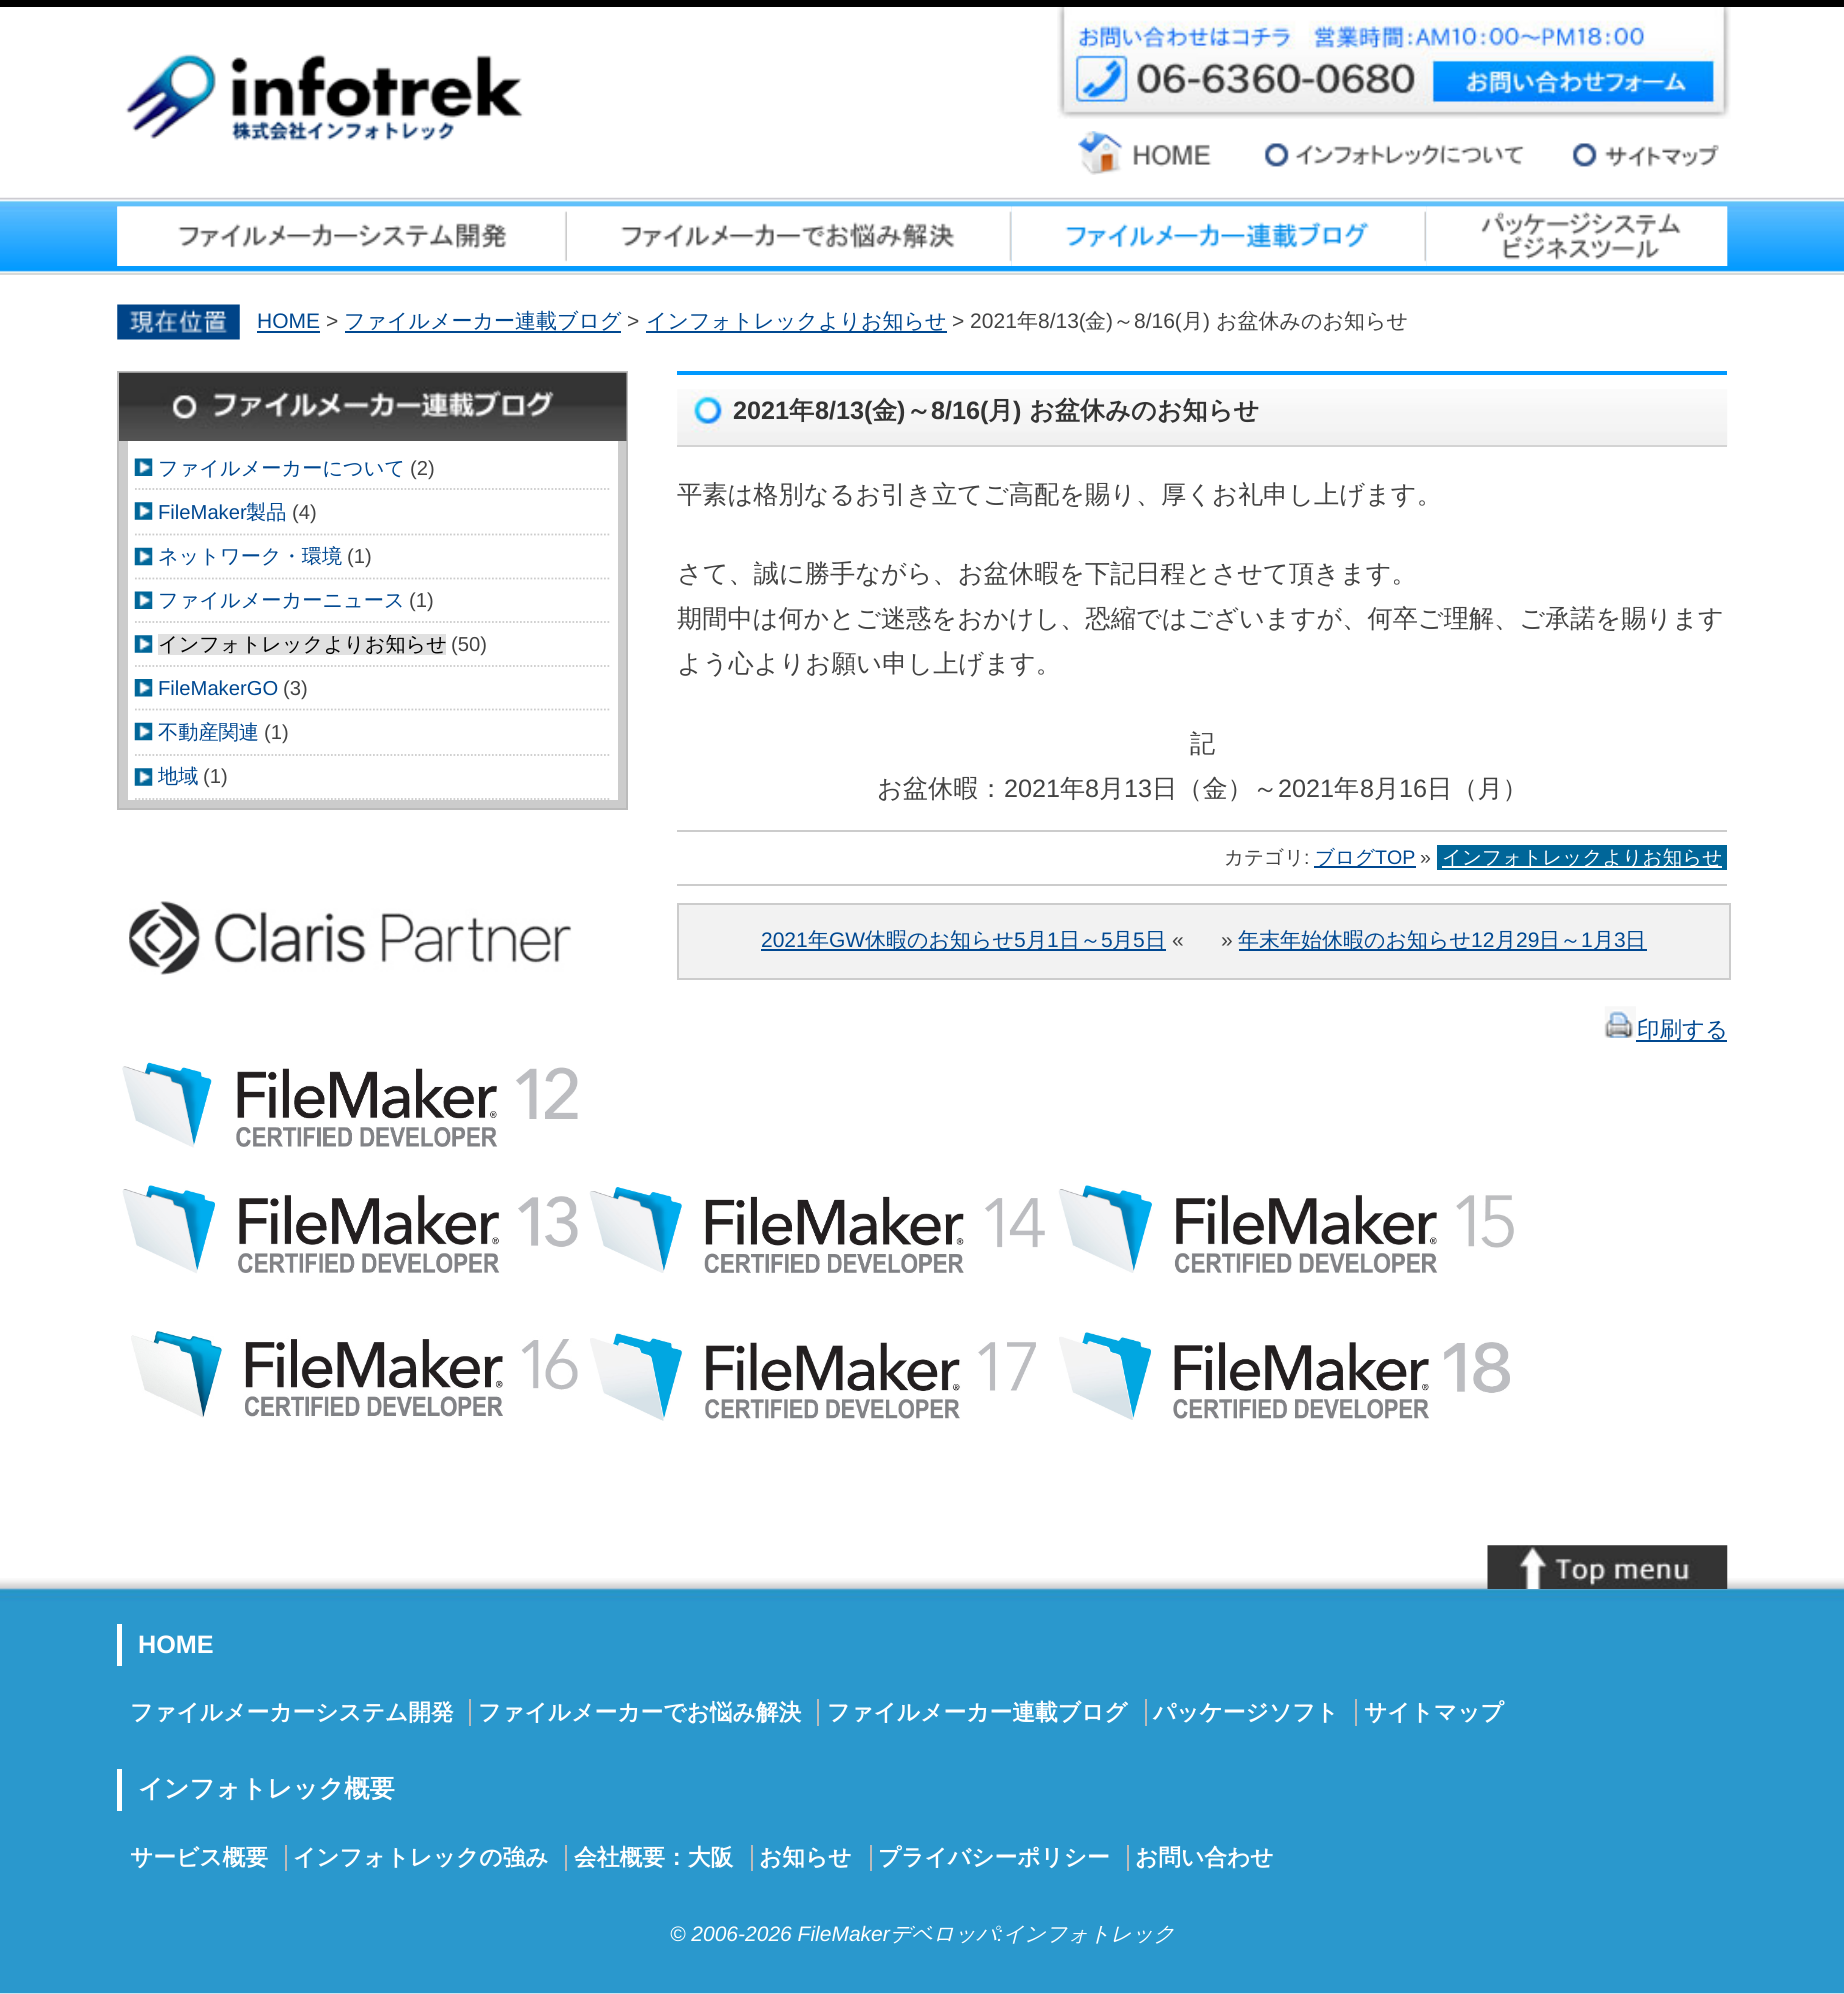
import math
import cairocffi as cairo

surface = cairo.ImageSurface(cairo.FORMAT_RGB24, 1844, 1994)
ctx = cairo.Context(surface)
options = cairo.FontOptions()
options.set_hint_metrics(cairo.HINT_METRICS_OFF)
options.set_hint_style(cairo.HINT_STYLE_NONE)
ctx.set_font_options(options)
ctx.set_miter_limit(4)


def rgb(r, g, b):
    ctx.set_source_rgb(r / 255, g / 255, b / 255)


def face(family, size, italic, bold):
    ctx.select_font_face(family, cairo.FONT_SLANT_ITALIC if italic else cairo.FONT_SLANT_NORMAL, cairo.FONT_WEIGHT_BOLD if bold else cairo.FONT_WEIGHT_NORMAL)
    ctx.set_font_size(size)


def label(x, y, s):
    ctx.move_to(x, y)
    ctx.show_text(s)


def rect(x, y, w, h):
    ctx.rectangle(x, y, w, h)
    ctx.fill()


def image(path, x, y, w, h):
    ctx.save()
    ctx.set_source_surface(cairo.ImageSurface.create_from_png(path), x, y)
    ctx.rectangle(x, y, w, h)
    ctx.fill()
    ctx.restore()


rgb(255, 255, 255)
ctx.paint()
rgb(0, 0, 0)
rect(0, 0, 1844, 7)
image('image0.png', 125, 54, 399, 87)
image('image1.png', 1057, 7, 674, 112)
image('image2.png', 1078, 131, 134, 44)
image('image3.png', 1264, 143, 261, 24)
image('image4.png', 1572, 143, 147, 24)
image('image5.png', 0, 197, 1844, 78)
image('image6.png', 117, 206, 450, 60)
image('image7.png', 117, 206, 450, 60)
image('image8.png', 567, 206, 445, 60)
image('image10.png', 1011, 206, 416, 60)
image('image9.png', 567, 206, 445, 60)
image('image11.png', 1011, 206, 415, 60)
image('image12.png', 1426, 206, 302, 60)
image('image13.png', 1426, 206, 302, 60)
image('image14.png', 117, 304, 123, 36)
face('Liberation Sans', 21, 0, 0)
rgb(0, 72, 145)
label(257, 328, 'HOME')
rect(257, 331, 63, 2)
rgb(67, 67, 67)
label(326, 328, '>')
face('WenQuanYi Zen Hei Medium', 21, 0, 0)
rgb(0, 72, 145)
label(344, 328, 'ファイルメーカー連載ブログ')
rect(345, 331, 276, 2)
face('Liberation Sans', 21, 0, 0)
rgb(67, 67, 67)
label(627, 328, '>')
rgb(0, 72, 145)
rect(646, 331, 301, 2)
face('WenQuanYi Zen Hei Medium', 21, 0, 0)
label(646, 328, 'インフォトレックよりお知らせ')
face('Liberation Sans', 21, 0, 0)
rgb(67, 67, 67)
label(952, 328, '> 2021')
face('WenQuanYi Zen Hei Medium', 21, 0, 0)
label(1017, 328, '年')
face('Liberation Sans', 21, 0, 0)
label(1038, 328, '8/13(')
face('WenQuanYi Zen Hei Medium', 21, 0, 0)
label(1085, 328, '金')
face('Liberation Sans', 21, 0, 0)
label(1106, 328, ')')
face('WenQuanYi Zen Hei Medium', 21, 0, 0)
label(1113, 328, '～')
face('Liberation Sans', 21, 0, 0)
label(1134, 328, '8/16(')
face('WenQuanYi Zen Hei Medium', 21, 0, 0)
label(1182, 328, '月')
face('Liberation Sans', 21, 0, 0)
label(1203, 328, ')')
face('WenQuanYi Zen Hei Medium', 21, 0, 0)
label(1216, 328, 'お盆休みのお知らせ')
rgb(204, 204, 204)
rect(119, 441, 507, 367)
ctx.rectangle(118, 372, 509, 437)
rgb(187, 187, 187)
ctx.stroke()
image('image15.png', 119, 372, 508, 69)
rgb(255, 255, 255)
rect(128, 441, 490, 359)
image('image16.png', 134, 458, 19, 18)
ctx.new_path()
ctx.move_to(135, 489)
ctx.line_to(611, 489)
rgb(204, 204, 204)
ctx.set_line_width(1.8)
ctx.set_dash([1.75, 1.75])
ctx.stroke()
face('WenQuanYi Zen Hei Medium', 20.2, 0, 0)
rgb(0, 72, 145)
label(158, 475, 'ファイルメーカーについて')
face('Liberation Sans', 20.2, 0, 0)
rgb(67, 67, 67)
label(410, 475, '(2)')
image('image17.png', 134, 502, 19, 18)
ctx.new_path()
ctx.move_to(135, 534.5)
ctx.line_to(611, 534.5)
rgb(204, 204, 204)
ctx.stroke()
rgb(0, 72, 145)
label(158, 519, 'FileMaker')
face('WenQuanYi Zen Hei Medium', 20.2, 0, 0)
label(246, 519, '製品')
face('Liberation Sans', 20.2, 0, 0)
rgb(67, 67, 67)
label(292, 519, '(4)')
image('image18.png', 134, 547, 19, 19)
ctx.new_path()
ctx.move_to(135, 578.5)
ctx.line_to(611, 578.5)
rgb(204, 204, 204)
ctx.stroke()
face('WenQuanYi Zen Hei Medium', 20.2, 0, 0)
rgb(0, 72, 145)
label(158, 563, 'ネットワーク・環境')
face('Liberation Sans', 20.2, 0, 0)
rgb(67, 67, 67)
label(347, 563, '(1)')
image('image16.png', 134, 591, 19, 18)
ctx.new_path()
ctx.move_to(135, 622)
ctx.line_to(611, 622)
rgb(204, 204, 204)
ctx.stroke()
face('WenQuanYi Zen Hei Medium', 20.2, 0, 0)
rgb(0, 72, 145)
label(158, 607, 'ファイルメーカーニュース')
face('Liberation Sans', 20.2, 0, 0)
rgb(67, 67, 67)
label(409, 607, '(1)')
image('image17.png', 134, 635, 19, 18)
ctx.new_path()
ctx.move_to(135, 666)
ctx.line_to(611, 666)
rgb(204, 204, 204)
ctx.stroke()
rgb(224, 224, 224)
rect(158, 634, 288, 21)
face('WenQuanYi Zen Hei Medium', 20.2, 0, 0)
rgb(0, 0, 0)
label(158, 651, 'インフォトレックよりお知らせ')
face('Liberation Sans', 20.2, 0, 0)
rgb(67, 67, 67)
label(451, 651, '(50)')
image('image19.png', 134, 679, 19, 18)
ctx.new_path()
ctx.move_to(135, 709.5)
ctx.line_to(611, 709.5)
rgb(204, 204, 204)
ctx.stroke()
rgb(0, 72, 145)
label(158, 695, 'FileMakerGO')
rgb(67, 67, 67)
label(283, 695, '(3)')
image('image18.png', 134, 722, 19, 19)
ctx.new_path()
ctx.move_to(135, 755)
ctx.line_to(611, 755)
rgb(204, 204, 204)
ctx.stroke()
face('WenQuanYi Zen Hei Medium', 20.2, 0, 0)
rgb(0, 72, 145)
label(158, 739, '不動産関連')
face('Liberation Sans', 20.2, 0, 0)
rgb(67, 67, 67)
label(264, 739, '(1)')
image('image17.png', 134, 768, 19, 18)
ctx.new_path()
ctx.move_to(135, 799)
ctx.line_to(611, 799)
rgb(204, 204, 204)
ctx.stroke()
face('WenQuanYi Zen Hei Medium', 20.2, 0, 0)
rgb(0, 72, 145)
label(158, 783, '地域')
face('Liberation Sans', 20.2, 0, 0)
rgb(67, 67, 67)
label(203, 783, '(1)')
image('image20.png', 677, 389, 1051, 58)
rgb(0, 153, 255)
rect(677, 371, 1050, 4)
rgb(211, 211, 211)
rect(677, 445, 1050, 2)
face('Liberation Sans', 25.2, 0, 1)
rgb(51, 51, 51)
label(733, 419, '2021')
face('WenQuanYi Zen Hei', 25.2, 0, 1)
label(789, 419, '年')
face('Liberation Sans', 25.2, 0, 1)
label(815, 419, '8/13(')
face('WenQuanYi Zen Hei', 25.2, 0, 1)
label(872, 419, '金')
face('Liberation Sans', 25.2, 0, 1)
label(897, 419, ')')
face('WenQuanYi Zen Hei', 25.2, 0, 1)
label(906, 419, '～')
face('Liberation Sans', 25.2, 0, 1)
label(931, 419, '8/16(')
face('WenQuanYi Zen Hei', 25.2, 0, 1)
label(988, 419, '月')
face('Liberation Sans', 25.2, 0, 1)
label(1013, 419, ')')
face('WenQuanYi Zen Hei', 25.2, 0, 1)
label(1029, 419, 'お盆休みのお知らせ')
face('WenQuanYi Zen Hei Medium', 25.2, 0, 0)
rgb(67, 67, 67)
label(677, 503, '平素は格別なるお引き立てご高配を賜り、厚くお礼申し上げます。')
label(677, 582, 'さて、誠に勝手ながら、お盆休暇を下記日程とさせて頂きます。')
label(677, 627, '期間中は何かとご迷惑をおかけし、恐縮ではございますが、何卒ご理解、ご承諾を賜ります')
label(677, 672, 'よう心よりお願い申し上げます。')
label(1190, 752, '記')
label(877, 797, 'お盆休暇：')
face('Liberation Sans', 25.2, 0, 0)
label(1004, 797, '2021')
face('WenQuanYi Zen Hei Medium', 25.2, 0, 0)
label(1060, 797, '年')
face('Liberation Sans', 25.2, 0, 0)
label(1085, 797, '8')
face('WenQuanYi Zen Hei Medium', 25.2, 0, 0)
label(1099, 797, '月')
face('Liberation Sans', 25.2, 0, 0)
label(1124, 797, '13')
face('WenQuanYi Zen Hei Medium', 25.2, 0, 0)
label(1152, 797, '日（金）～')
face('Liberation Sans', 25.2, 0, 0)
label(1278, 797, '2021')
face('WenQuanYi Zen Hei Medium', 25.2, 0, 0)
label(1334, 797, '年')
face('Liberation Sans', 25.2, 0, 0)
label(1360, 797, '8')
face('WenQuanYi Zen Hei Medium', 25.2, 0, 0)
label(1374, 797, '月')
face('Liberation Sans', 25.2, 0, 0)
label(1399, 797, '16')
face('WenQuanYi Zen Hei Medium', 25.2, 0, 0)
label(1427, 797, '日（月）')
rgb(204, 204, 204)
rect(677, 830, 1050, 2)
rect(677, 884, 1050, 2)
face('WenQuanYi Zen Hei Medium', 19.6, 0, 0)
rgb(67, 67, 67)
label(1224, 864, 'カテゴリ')
face('Liberation Sans', 19.6, 0, 0)
label(1304, 864, ':')
rgb(0, 72, 145)
rect(1314, 866, 102, 2)
face('WenQuanYi Zen Hei Medium', 19.6, 0, 0)
label(1315, 864, 'ブログ')
face('Liberation Sans', 19.6, 0, 0)
label(1375, 864, 'TOP')
rgb(67, 67, 67)
label(1420, 864, '»')
rgb(0, 102, 153)
rect(1437, 845, 290, 25)
rgb(255, 255, 255)
rect(1442, 866, 280, 2)
face('WenQuanYi Zen Hei Medium', 19.6, 0, 0)
label(1442, 864, 'インフォトレックよりお知らせ')
rgb(242, 242, 242)
ctx.rectangle(678, 904, 1052, 75)
ctx.fill_preserve()
rgb(204, 204, 204)
ctx.set_line_width(2)
ctx.set_dash([])
ctx.stroke()
face('Liberation Sans', 21, 0, 0)
rgb(0, 72, 145)
label(761, 947, '2021')
rect(761, 949, 405, 2)
face('WenQuanYi Zen Hei Medium', 21, 0, 0)
label(808, 947, '年')
face('Liberation Sans', 21, 0, 0)
label(829, 947, 'GW')
face('WenQuanYi Zen Hei Medium', 21, 0, 0)
label(865, 947, '休暇のお知らせ')
face('Liberation Sans', 21, 0, 0)
label(1014, 947, '5')
face('WenQuanYi Zen Hei Medium', 21, 0, 0)
label(1026, 947, '月')
face('Liberation Sans', 21, 0, 0)
label(1047, 947, '1')
face('WenQuanYi Zen Hei Medium', 21, 0, 0)
label(1059, 947, '日～')
face('Liberation Sans', 21, 0, 0)
label(1101, 947, '5')
face('WenQuanYi Zen Hei Medium', 21, 0, 0)
label(1112, 947, '月')
face('Liberation Sans', 21, 0, 0)
label(1133, 947, '5')
face('WenQuanYi Zen Hei Medium', 21, 0, 0)
label(1145, 947, '日')
face('Liberation Sans', 21, 0, 0)
rgb(67, 67, 67)
label(1172, 947, '«')
label(1221, 947, '»')
rgb(0, 72, 145)
rect(1239, 949, 408, 2)
face('WenQuanYi Zen Hei Medium', 21, 0, 0)
label(1238, 947, '年末年始休暇のお知らせ')
face('Liberation Sans', 21, 0, 0)
label(1471, 947, '12')
face('WenQuanYi Zen Hei Medium', 21, 0, 0)
label(1495, 947, '月')
face('Liberation Sans', 21, 0, 0)
label(1516, 947, '29')
face('WenQuanYi Zen Hei Medium', 21, 0, 0)
label(1539, 947, '日～')
face('Liberation Sans', 21, 0, 0)
label(1581, 947, '1')
face('WenQuanYi Zen Hei Medium', 21, 0, 0)
label(1593, 947, '月')
face('Liberation Sans', 21, 0, 0)
label(1614, 947, '3')
face('WenQuanYi Zen Hei Medium', 21, 0, 0)
label(1625, 947, '日')
image('image21.png', 1604, 1006, 32, 32)
rect(1636, 1040, 91, 2)
face('WenQuanYi Zen Hei Medium', 22.5, 0, 0)
label(1637, 1037, '印刷する')
image('image22.png', 129, 901, 443, 74)
image('image23.png', 122, 1062, 456, 86)
image('image24.png', 122, 1185, 456, 89)
image('image25.png', 589, 1187, 456, 86)
image('image26.png', 1058, 1185, 456, 88)
image('image27.png', 131, 1331, 447, 87)
image('image28.png', 590, 1333, 446, 88)
image('image29.png', 1059, 1332, 451, 88)
image('image30.png', 0, 1578, 1844, 416)
image('image31.png', 1487, 1545, 241, 44)
rgb(255, 255, 255)
rect(117, 1624, 5, 42)
face('Liberation Sans', 25.2, 0, 1)
label(138, 1653, 'HOME')
face('WenQuanYi Zen Hei', 22.75, 0, 1)
label(130, 1720, 'ファイルメーカーシステム開発')
rgb(187, 187, 187)
rect(469, 1699, 2, 27)
rgb(255, 255, 255)
label(478, 1720, 'ファイルメーカーでお悩み解決')
rgb(187, 187, 187)
rect(817, 1699, 2, 27)
rgb(255, 255, 255)
label(827, 1720, 'ファイルメーカー連載ブログ')
rgb(187, 187, 187)
rect(1145, 1699, 2, 27)
rgb(255, 255, 255)
label(1153, 1720, 'パッケージソフト')
rgb(187, 187, 187)
rect(1355, 1699, 2, 27)
rgb(255, 255, 255)
label(1364, 1720, 'サイトマップ')
rect(117, 1769, 5, 42)
face('WenQuanYi Zen Hei', 25.2, 0, 1)
label(138, 1797, 'インフォトレック概要')
face('WenQuanYi Zen Hei', 22.75, 0, 1)
label(130, 1865, 'サービス概要')
rgb(187, 187, 187)
rect(285, 1845, 2, 26)
rgb(255, 255, 255)
label(293, 1865, 'インフォトレックの強み')
rgb(187, 187, 187)
rect(565, 1845, 2, 26)
rgb(255, 255, 255)
label(574, 1865, '会社概要：大阪')
rgb(187, 187, 187)
rect(751, 1845, 2, 26)
rgb(255, 255, 255)
label(759, 1865, 'お知らせ')
rgb(187, 187, 187)
rect(870, 1845, 2, 26)
rgb(255, 255, 255)
label(878, 1865, 'プライバシーポリシー')
rgb(187, 187, 187)
rect(1127, 1845, 2, 26)
rgb(255, 255, 255)
label(1135, 1865, 'お問い合わせ')
face('Liberation Sans', 21, 1, 0)
label(670, 1941, '© 2006-2026 FileMaker')
face('WenQuanYi Zen Hei Medium', 21, 1, 0)
label(890, 1941, 'デベロッパ')
label(1003, 1941, 'インフォトレック')
face('Liberation Sans', 21, 1, 0)
label(997, 1941, ':')
surface.write_to_png('render.png')
